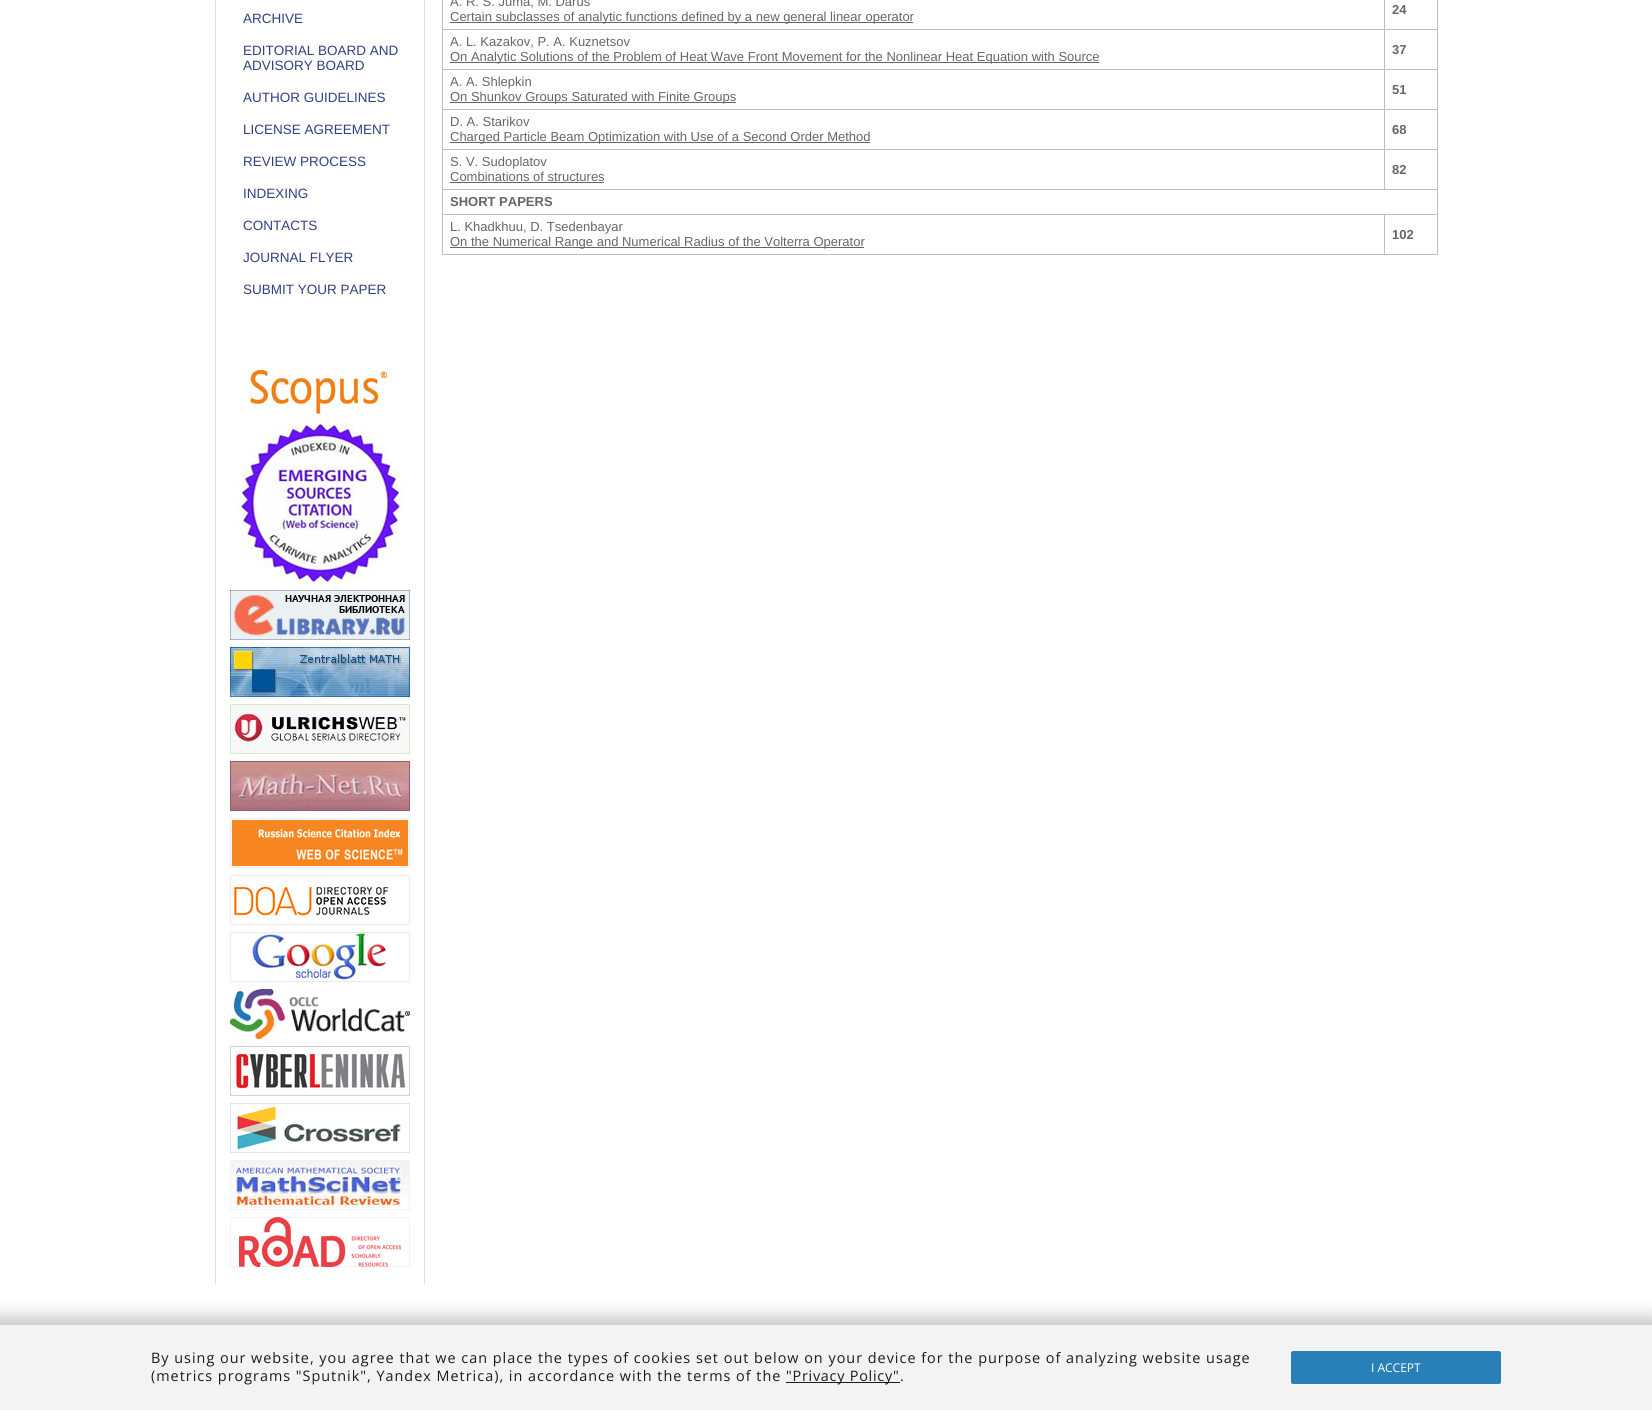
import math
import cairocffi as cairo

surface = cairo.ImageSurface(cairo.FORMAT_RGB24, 1652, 1410)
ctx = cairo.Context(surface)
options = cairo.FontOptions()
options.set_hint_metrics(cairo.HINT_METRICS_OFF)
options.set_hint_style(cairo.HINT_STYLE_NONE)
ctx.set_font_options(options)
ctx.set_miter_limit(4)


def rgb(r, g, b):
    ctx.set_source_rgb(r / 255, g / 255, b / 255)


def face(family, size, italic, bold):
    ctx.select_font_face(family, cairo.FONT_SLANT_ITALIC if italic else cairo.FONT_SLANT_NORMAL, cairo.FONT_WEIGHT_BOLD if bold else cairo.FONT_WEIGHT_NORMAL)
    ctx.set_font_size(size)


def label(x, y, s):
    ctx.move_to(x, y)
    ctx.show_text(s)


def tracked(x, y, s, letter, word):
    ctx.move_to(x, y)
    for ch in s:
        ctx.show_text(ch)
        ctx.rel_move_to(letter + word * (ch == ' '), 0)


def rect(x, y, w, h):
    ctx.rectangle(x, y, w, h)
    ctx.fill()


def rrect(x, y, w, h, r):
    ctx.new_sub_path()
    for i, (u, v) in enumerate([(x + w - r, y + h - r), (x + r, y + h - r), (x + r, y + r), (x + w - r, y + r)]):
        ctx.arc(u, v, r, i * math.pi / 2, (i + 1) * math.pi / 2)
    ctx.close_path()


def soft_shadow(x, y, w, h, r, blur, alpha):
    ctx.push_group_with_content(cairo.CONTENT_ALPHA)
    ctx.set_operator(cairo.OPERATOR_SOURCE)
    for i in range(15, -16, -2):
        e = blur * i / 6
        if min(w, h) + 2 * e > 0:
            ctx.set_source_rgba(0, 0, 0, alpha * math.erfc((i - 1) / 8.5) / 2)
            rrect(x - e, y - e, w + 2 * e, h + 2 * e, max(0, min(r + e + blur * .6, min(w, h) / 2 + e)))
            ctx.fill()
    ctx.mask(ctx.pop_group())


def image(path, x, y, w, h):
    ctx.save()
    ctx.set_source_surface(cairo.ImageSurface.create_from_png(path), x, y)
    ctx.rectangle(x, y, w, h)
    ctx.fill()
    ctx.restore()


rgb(255, 255, 255)
ctx.paint()
rgb(226, 226, 226)
rect(424, 0, 1, 1284)
rect(215, 0, 1, 1284)
face('Liberation Sans', 13.5, 0, 0)
rgb(50, 64, 128)
label(243, 23, 'ARCHIVE')
label(243, 55, 'EDITORIAL BOARD AND')
label(243, 70, 'ADVISORY BOARD')
label(243, 102, 'AUTHOR GUIDELINES')
label(243, 134, 'LICENSE AGREEMENT')
label(243, 166, 'REVIEW PROCESS')
label(243, 198, 'INDEXING')
label(243, 230, 'CONTACTS')
label(243, 262, 'JOURNAL FLYER')
label(243, 294, 'SUBMIT YOUR PAPER')
image('image0.png', 250, 369, 138, 45)
image('image1.png', 236, 423, 170, 160)
image('image2.png', 230, 590, 180, 50)
image('image3.png', 230, 647, 180, 50)
image('image4.png', 230, 704, 180, 50)
image('image5.png', 230, 761, 180, 50)
image('image6.png', 230, 818, 180, 50)
image('image7.png', 230, 875, 180, 50)
image('image8.png', 230, 932, 180, 50)
image('image9.png', 230, 989, 180, 50)
image('image10.png', 230, 1046, 180, 50)
image('image11.png', 230, 1103, 180, 50)
image('image12.png', 230, 1160, 180, 50)
image('image13.png', 230, 1217, 180, 50)
rgb(191, 191, 191)
rect(1437, 0, 1, 255)
rect(442, 254, 996, 1)
rect(442, 0, 1, 255)
face('Liberation Sans', 13, 0, 0)
rgb(102, 102, 102)
label(450, 6, 'A. R. S. Juma, M. Darus')
rect(450, 22, 463, 1)
label(450, 21, 'Certain subclasses of analytic functions defined by a new general linear operator')
rgb(191, 191, 191)
rect(1384, 29, 54, 1)
rect(1384, 69, 54, 1)
rect(1384, 109, 54, 1)
rect(1384, 149, 54, 1)
rect(442, 189, 996, 1)
rect(1384, 149, 1, 41)
rect(442, 149, 943, 1)
rect(1384, 109, 1, 41)
rect(442, 109, 943, 1)
rect(1384, 69, 1, 41)
rect(442, 69, 943, 1)
rect(1384, 29, 1, 41)
rect(442, 29, 943, 1)
rect(1384, 0, 1, 30)
face('Liberation Sans', 13, 0, 1)
rgb(102, 102, 102)
label(1392, 14, '24')
face('Liberation Sans', 13, 0, 0)
label(450, 46, 'A. L. Kazakov, P. A. Kuznetsov')
rect(450, 62, 649, 1)
label(450, 61, 'On Analytic Solutions of the Problem of Heat Wave Front Movement for the Nonlinear Heat Equation with Source')
face('Liberation Sans', 13, 0, 1)
label(1392, 54, '37')
face('Liberation Sans', 13, 0, 0)
label(450, 86, 'A. A. Shlepkin')
rect(450, 102, 286, 1)
label(450, 101, 'On Shunkov Groups Saturated with Finite Groups')
face('Liberation Sans', 13, 0, 1)
label(1392, 94, '51')
face('Liberation Sans', 13, 0, 0)
label(450, 126, 'D. A. Starikov')
rect(450, 142, 420, 1)
label(450, 141, 'Charged Particle Beam Optimization with Use of a Second Order Method')
face('Liberation Sans', 13, 0, 1)
label(1392, 134, '68')
face('Liberation Sans', 13, 0, 0)
label(450, 166, 'S. V. Sudoplatov')
label(450, 181, 'Combinations of structures')
rect(450, 182, 154, 1)
face('Liberation Sans', 13, 0, 1)
label(1392, 174, '82')
label(450, 206, 'SHORT PAPERS')
rgb(191, 191, 191)
rect(1384, 214, 54, 1)
rect(1384, 214, 1, 41)
rect(442, 214, 943, 1)
face('Liberation Sans', 13, 0, 0)
rgb(102, 102, 102)
label(450, 231, 'L. Khadkhuu, D. Tsedenbayar')
rect(450, 247, 414, 1)
label(450, 246, 'On the Numerical Range and Numerical Radius of the Volterra Operator')
face('Liberation Sans', 13, 0, 1)
label(1392, 239, '102')
rgb(0, 0, 0)
soft_shadow(-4, 1318, 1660, 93, 0, 9, 0.25)
rgb(243, 243, 243)
rect(0, 1325, 1652, 85)
face('Open Sans', 14.4, 0, 0)
rgb(27, 27, 27)
tracked(151, 1363, 'By using our website, you agree that we can place the types of cookies set out below on your device for the purpose of analyzing website usage', 1, 0)
tracked(151, 1381, '(metrics programs "Sputnik", Yandex Metrica), in accordance with the terms of the', 1, 0)
rect(786, 1382, 114, 1)
tracked(786, 1381, '"Privacy Policy"', 0.75, 0)
tracked(900, 1381, '.', 1, 0)
rgb(41, 128, 185)
rrect(1291, 1351, 210, 33, 2)
ctx.fill()
face('Open Sans', 12, 0, 0)
rgb(255, 255, 255)
label(1371, 1372, 'I ACCEPT')
surface.write_to_png('render.png')
